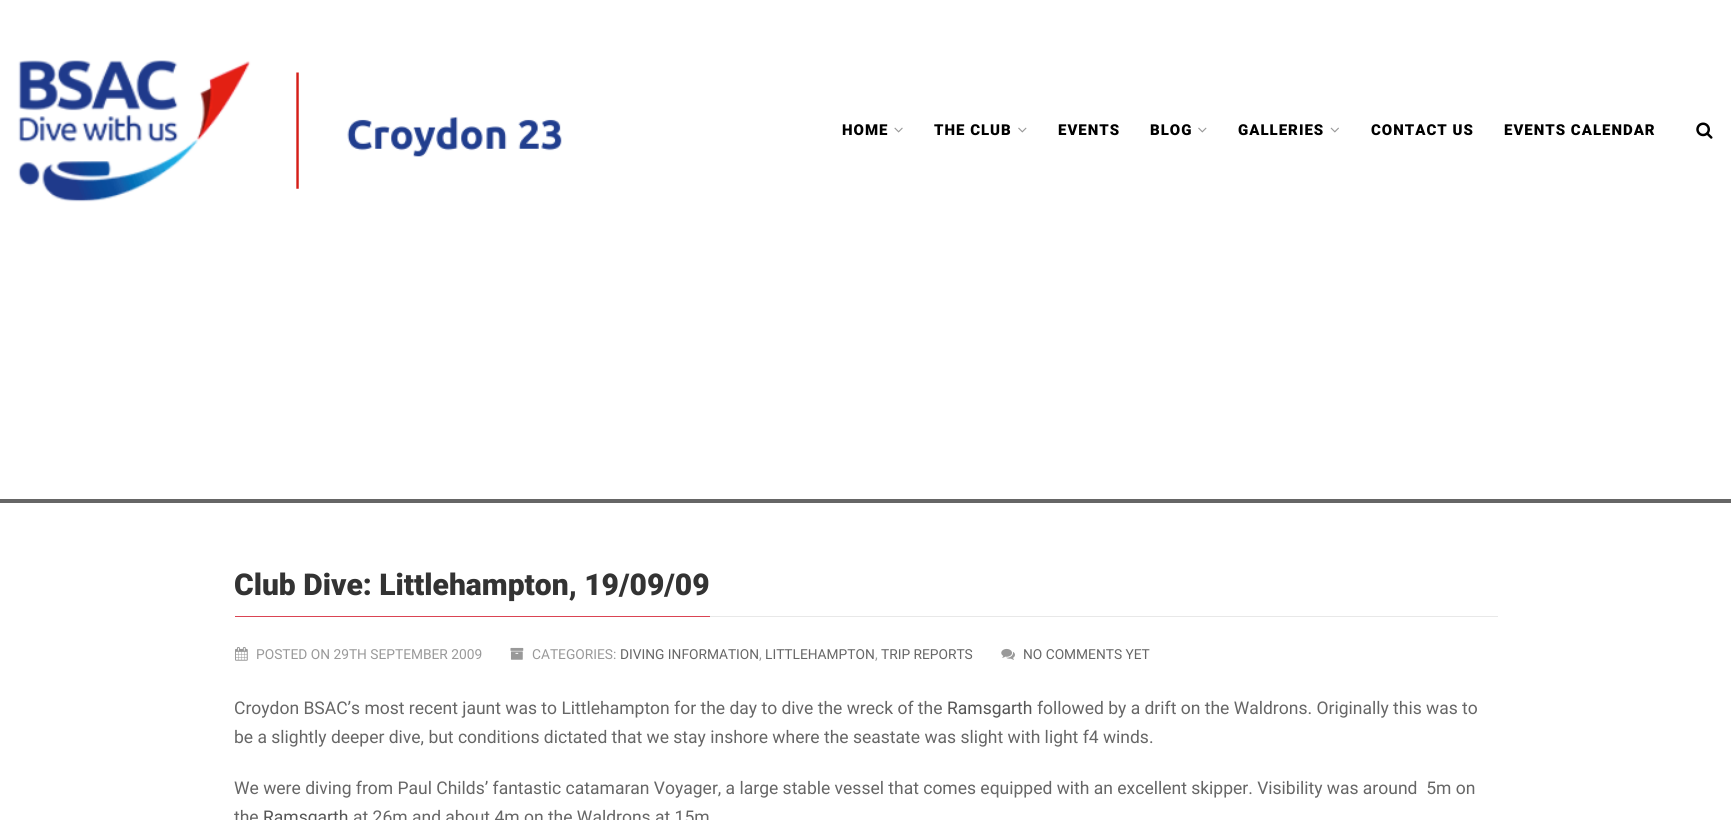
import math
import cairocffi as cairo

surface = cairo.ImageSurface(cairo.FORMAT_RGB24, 1731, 820)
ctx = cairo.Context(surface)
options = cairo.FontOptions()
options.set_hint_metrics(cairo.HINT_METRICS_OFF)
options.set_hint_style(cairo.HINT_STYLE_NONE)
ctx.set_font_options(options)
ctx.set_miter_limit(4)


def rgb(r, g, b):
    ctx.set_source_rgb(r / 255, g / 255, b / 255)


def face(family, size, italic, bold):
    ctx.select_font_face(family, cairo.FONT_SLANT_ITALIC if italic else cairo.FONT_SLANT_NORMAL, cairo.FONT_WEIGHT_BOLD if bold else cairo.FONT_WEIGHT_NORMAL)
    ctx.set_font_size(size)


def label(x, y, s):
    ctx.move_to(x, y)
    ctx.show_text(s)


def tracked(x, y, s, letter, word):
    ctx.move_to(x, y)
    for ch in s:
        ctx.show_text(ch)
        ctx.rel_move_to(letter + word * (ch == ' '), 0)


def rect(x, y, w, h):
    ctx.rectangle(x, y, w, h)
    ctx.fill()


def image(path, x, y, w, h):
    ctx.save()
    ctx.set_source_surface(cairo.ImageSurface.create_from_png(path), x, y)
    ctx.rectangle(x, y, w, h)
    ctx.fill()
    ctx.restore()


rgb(255, 255, 255)
ctx.paint()
image('image0.png', 18, 60, 544, 142)
face('Roboto Black', 15, 0, 0)
rgb(0, 0, 0)
tracked(842, 135, 'HOME', 1, 0)
image('image1.png', 894, 127, 9, 6)
tracked(934, 135, 'THE CLUB', 1, 0)
image('image2.png', 1018, 127, 9, 6)
tracked(1058, 135, 'EVENTS', 1, 0)
tracked(1150, 135, 'BLOG', 1, 0)
image('image2.png', 1198, 127, 9, 6)
tracked(1238, 135, 'GALLERIES', 1, 0)
image('image3.png', 1330, 127, 9, 6)
tracked(1371, 135, 'CONTACT US', 1, 0)
tracked(1504, 135, 'EVENTS CALENDAR', 1, 0)
image('image4.png', 1696, 122, 17, 17)
rgb(102, 102, 102)
rect(0, 499, 1731, 4)
rgb(232, 232, 232)
rect(710, 616, 788, 1)
rgb(218, 68, 83)
rect(235, 616, 475, 1)
face('Roboto Black', 30, 0, 0)
rgb(51, 51, 51)
label(234, 595, 'Club Dive: Littlehampton, 19/09/09')
image('image5.png', 235, 647, 13, 14)
face('Roboto', 13.75, 0, 0)
rgb(153, 153, 153)
label(256, 659, 'POSTED ON 29TH SEPTEMBER 2009')
image('image6.png', 510, 647, 14, 13)
label(532, 659, 'CATEGORIES:')
rgb(102, 102, 102)
label(620, 659, 'DIVING INFORMATION')
rgb(153, 153, 153)
label(759, 659, ',')
rgb(102, 102, 102)
label(765, 659, 'LITTLEHAMPTON')
rgb(153, 153, 153)
label(875, 659, ',')
rgb(102, 102, 102)
label(881, 659, 'TRIP REPORTS')
image('image7.png', 1001, 648, 14, 12)
label(1023, 659, 'NO COMMENTS YET')
face('Roboto', 17.5, 0, 0)
label(234, 714, 'Croydon BSAC’s most recent jaunt was to Littlehampton for the day to dive the wreck of the')
rgb(85, 85, 85)
label(947, 714, 'Ramsgarth')
rgb(102, 102, 102)
label(1037, 714, 'followed by a drift on the Waldrons. Originally this was to')
label(234, 743, 'be a slightly deeper dive, but conditions dictated that we stay inshore where the seastate was slight with light f4 winds.')
label(234, 794, 'We were diving from Paul Childs’ fantastic catamaran Voyager, a large stable vessel that comes equipped with an excellent skipper. Visibility was around  5m on')
label(234, 823, 'the')
rgb(85, 85, 85)
label(263, 823, 'Ramsgarth')
rgb(102, 102, 102)
label(353, 823, 'at 26m and about 4m on the Waldrons at 15m')
surface.write_to_png('render.png')
